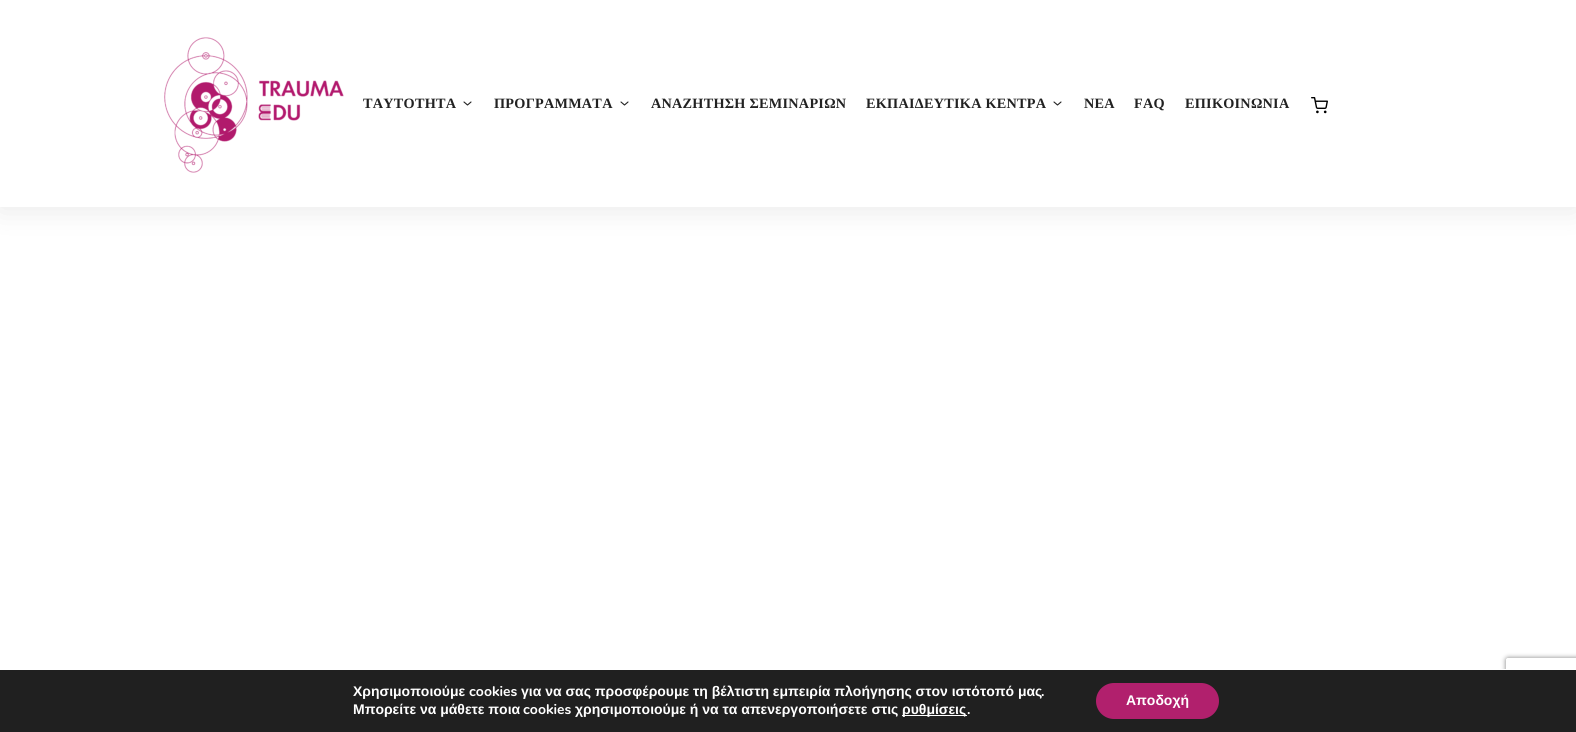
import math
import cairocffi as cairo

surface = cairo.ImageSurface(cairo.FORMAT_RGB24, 1576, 732)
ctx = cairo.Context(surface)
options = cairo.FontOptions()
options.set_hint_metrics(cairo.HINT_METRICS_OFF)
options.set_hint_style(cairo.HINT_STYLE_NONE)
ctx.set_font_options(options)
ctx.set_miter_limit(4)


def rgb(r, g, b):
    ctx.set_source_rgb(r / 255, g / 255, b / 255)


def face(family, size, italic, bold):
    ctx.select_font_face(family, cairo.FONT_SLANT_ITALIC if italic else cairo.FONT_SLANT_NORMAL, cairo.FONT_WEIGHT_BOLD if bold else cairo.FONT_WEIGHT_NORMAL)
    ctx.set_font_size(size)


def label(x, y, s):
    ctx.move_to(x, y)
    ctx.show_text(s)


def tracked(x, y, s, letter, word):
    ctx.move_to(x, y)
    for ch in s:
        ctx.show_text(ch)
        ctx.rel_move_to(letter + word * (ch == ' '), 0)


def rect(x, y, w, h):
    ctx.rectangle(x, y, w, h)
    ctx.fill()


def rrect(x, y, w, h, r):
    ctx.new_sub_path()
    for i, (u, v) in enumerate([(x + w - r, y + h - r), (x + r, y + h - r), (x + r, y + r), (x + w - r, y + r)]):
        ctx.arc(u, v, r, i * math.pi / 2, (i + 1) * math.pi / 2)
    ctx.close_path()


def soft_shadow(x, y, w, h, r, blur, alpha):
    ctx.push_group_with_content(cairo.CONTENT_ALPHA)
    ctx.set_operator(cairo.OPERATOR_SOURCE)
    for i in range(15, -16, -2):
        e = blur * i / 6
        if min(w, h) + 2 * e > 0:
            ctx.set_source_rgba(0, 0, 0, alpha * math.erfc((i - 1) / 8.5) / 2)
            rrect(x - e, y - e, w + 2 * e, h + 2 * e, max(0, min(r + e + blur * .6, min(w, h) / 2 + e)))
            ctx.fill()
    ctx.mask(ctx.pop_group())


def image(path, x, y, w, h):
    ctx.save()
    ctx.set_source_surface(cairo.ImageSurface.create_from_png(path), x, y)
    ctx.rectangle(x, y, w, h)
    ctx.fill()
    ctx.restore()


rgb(255, 255, 255)
ctx.paint()
rgb(0, 0, 0)
soft_shadow(0, 1, 1576, 207, 0, 15, 0.1)
rgb(255, 255, 255)
rect(0, 0, 1576, 207)
image('image0.png', 164, 37, 180, 136)
face('Liberation Serif', 14.25, 0, 1)
rgb(34, 34, 34)
tracked(363, 108, 'ΤΑΥΤΟΤΗΤΑ', 0.25, 0)
ctx.new_path()
ctx.move_to(464, 102)
ctx.line_to(467.5, 105)
ctx.line_to(471, 102)
ctx.set_line_width(1.1)
ctx.set_line_cap(cairo.LINE_CAP_ROUND)
ctx.set_line_join(cairo.LINE_JOIN_ROUND)
ctx.stroke()
tracked(494, 108, 'ΠΡΟΓΡΑΜΜΑΤΑ', 0.25, 0)
ctx.new_path()
ctx.move_to(621, 102)
ctx.line_to(624.5, 105)
ctx.line_to(628, 102)
ctx.stroke()
tracked(651, 108, 'ΑΝΑΖΗΤΗΣΗ ΣΕΜΙΝΑΡΙΩΝ', 0.25, 0)
tracked(866, 108, 'ΕΚΠΑΙΔΕΥΤΙΚΑ ΚΕΝΤΡΑ', 0.25, 0)
ctx.new_path()
ctx.move_to(1054, 102)
ctx.line_to(1057.5, 105)
ctx.line_to(1061, 102)
ctx.stroke()
tracked(1084, 108, 'NEA', 0.25, 0)
tracked(1134, 108, 'FAQ', 0.25, 0)
tracked(1185, 108, 'ΕΠΙΚΟΙΝΩΝΙΑ', 0.25, 0)
image('image1.png', 1311, 97, 17, 17)
ctx.save()
ctx.set_fill_rule(cairo.FILL_RULE_EVEN_ODD)
ctx.new_path()
ctx.move_to(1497, 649)
ctx.line_to(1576, 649)
ctx.line_to(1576, 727)
ctx.line_to(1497, 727)
ctx.close_path()
ctx.move_to(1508, 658)
ctx.line_to(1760, 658)
ctx.curve_to(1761, 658, 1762, 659, 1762, 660)
ctx.line_to(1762, 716)
ctx.curve_to(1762, 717, 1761, 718, 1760, 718)
ctx.line_to(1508, 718)
ctx.curve_to(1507, 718, 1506, 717, 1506, 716)
ctx.line_to(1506, 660)
ctx.curve_to(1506, 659, 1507, 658, 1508, 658)
ctx.close_path()
ctx.clip()
rgb(128, 128, 128)
soft_shadow(1506, 658, 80, 60, 2, 2.5, 1)
ctx.restore()
rgb(32, 32, 32)
rect(0, 670, 1576, 62)
rgb(255, 255, 255)
rect(1501, 669, 5, 1)
face('Liberation Sans', 14, 0, 1)
label(353, 696, 'Χρησιμοποιούμε')
face('Nunito', 14, 0, 1)
label(469, 696, 'cookies')
face('Liberation Sans', 14, 0, 1)
label(521, 696, 'για να σας προσφέρουμε τη βέλτιστη εμπειρία πλοήγησης στον ιστότοπό μας')
face('Nunito', 14, 0, 1)
label(1041, 696, '.')
face('Liberation Sans', 14, 0, 1)
label(353, 714, 'Μπορείτε να μάθετε ποια')
face('Nunito', 14, 0, 1)
label(523, 714, 'cookies')
face('Liberation Sans', 14, 0, 1)
label(575, 714, 'χρησιμοποιούμε ή να τα απενεργοποιήσετε στις')
rect(902, 715, 65, 1)
label(902, 714, 'ρυθμίσεις')
face('Nunito', 14, 0, 1)
label(967, 714, '.')
rgb(177, 32, 109)
rrect(1096, 683, 123, 36, 18)
ctx.fill()
face('Liberation Sans', 14, 0, 1)
rgb(255, 255, 255)
label(1126, 705, 'Αποδοχή')
surface.write_to_png('render.png')
